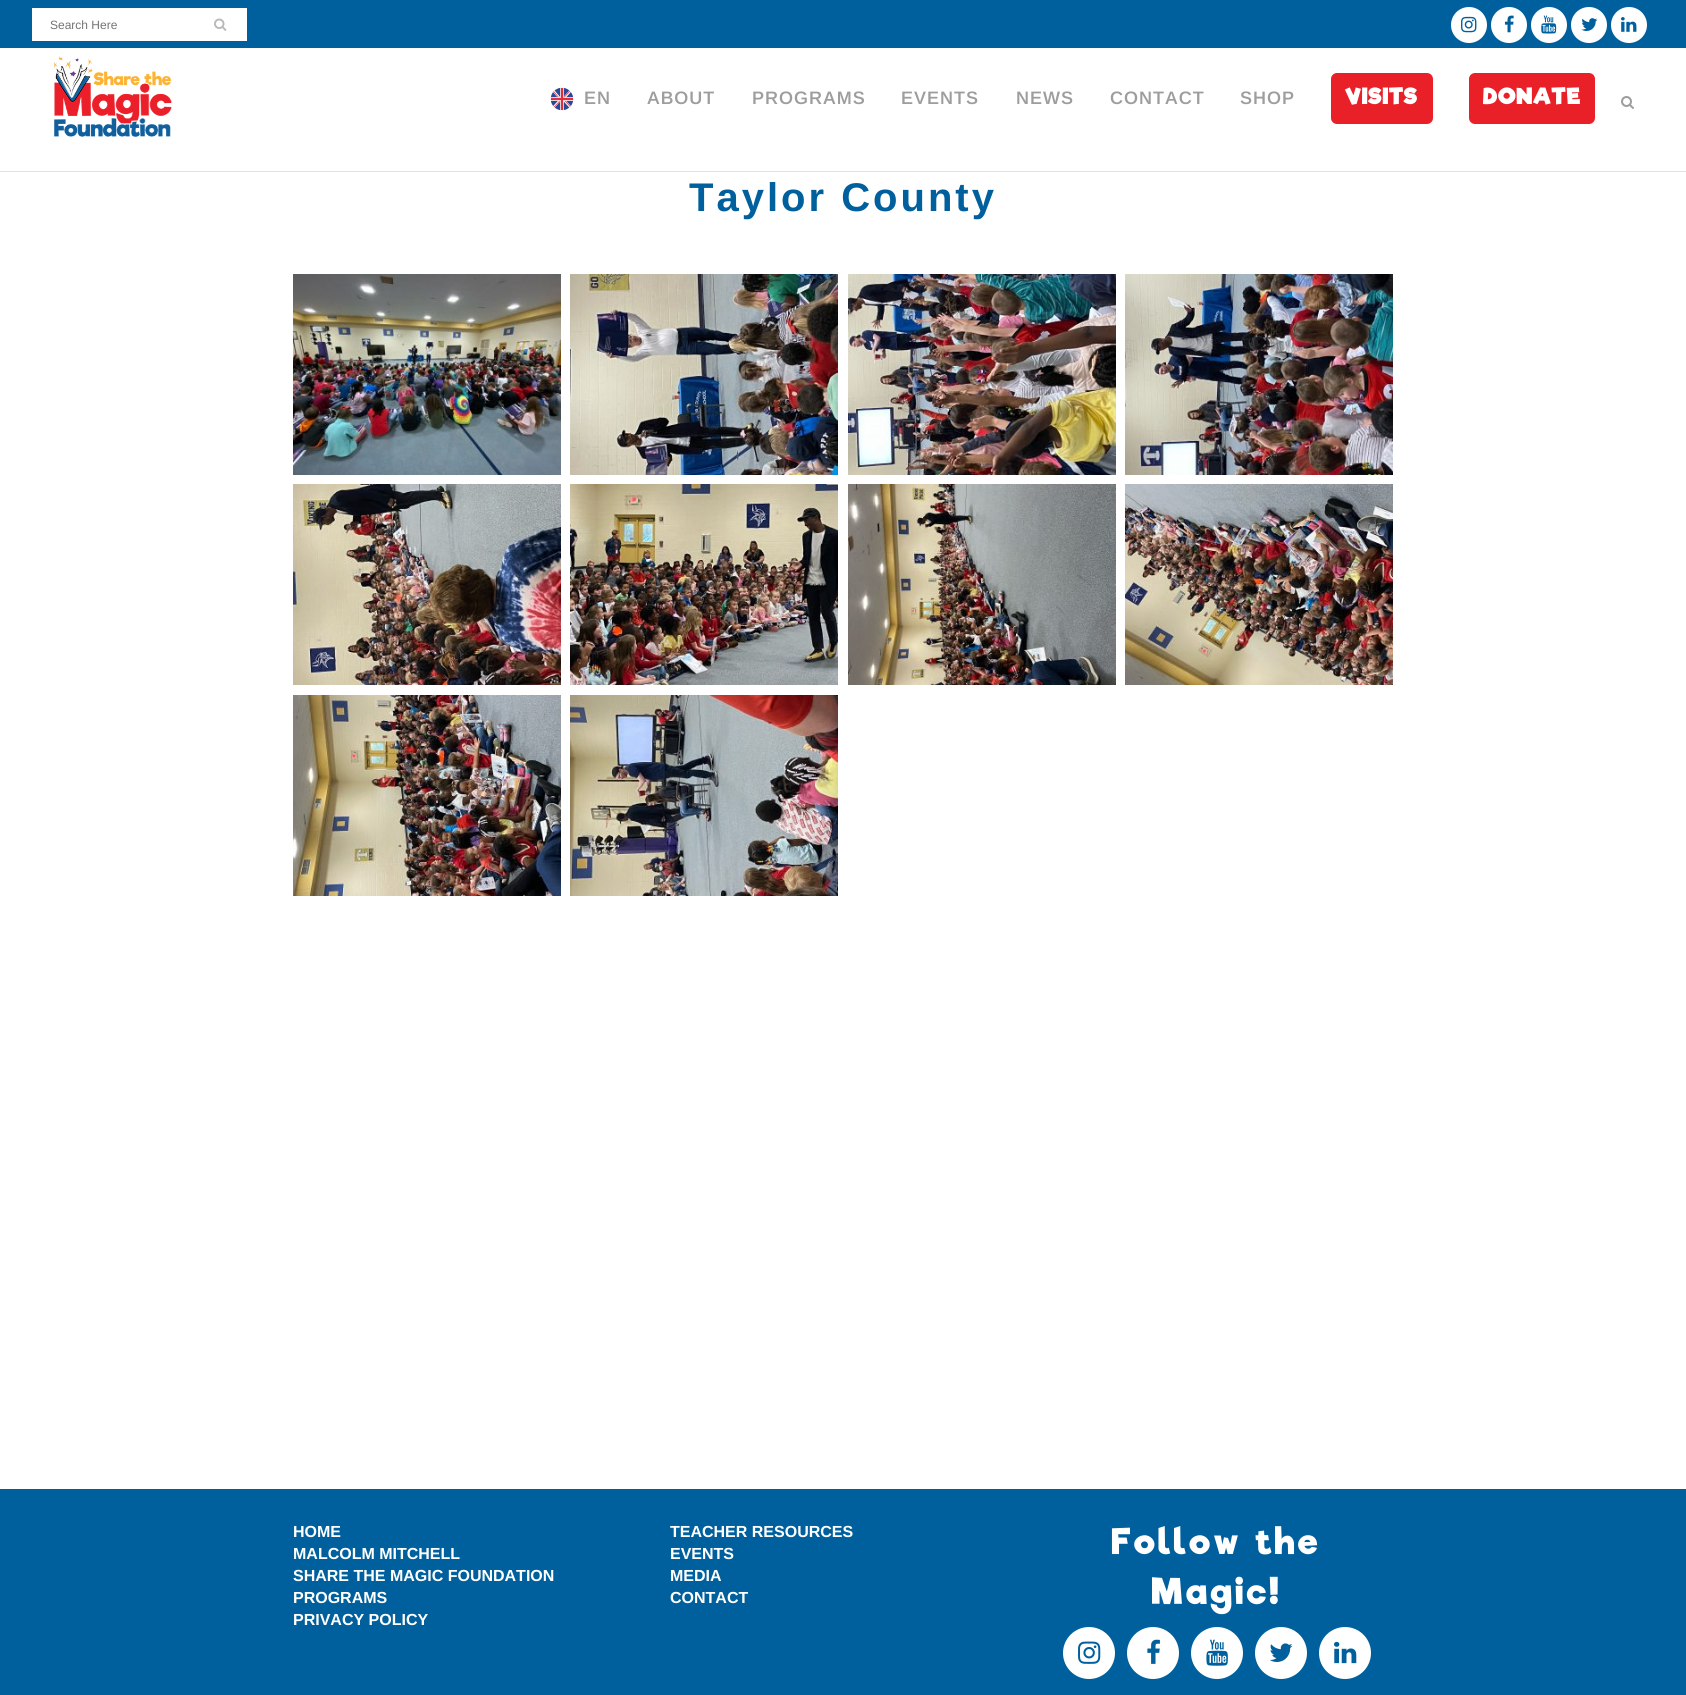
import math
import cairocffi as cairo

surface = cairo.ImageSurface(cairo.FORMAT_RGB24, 1686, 1695)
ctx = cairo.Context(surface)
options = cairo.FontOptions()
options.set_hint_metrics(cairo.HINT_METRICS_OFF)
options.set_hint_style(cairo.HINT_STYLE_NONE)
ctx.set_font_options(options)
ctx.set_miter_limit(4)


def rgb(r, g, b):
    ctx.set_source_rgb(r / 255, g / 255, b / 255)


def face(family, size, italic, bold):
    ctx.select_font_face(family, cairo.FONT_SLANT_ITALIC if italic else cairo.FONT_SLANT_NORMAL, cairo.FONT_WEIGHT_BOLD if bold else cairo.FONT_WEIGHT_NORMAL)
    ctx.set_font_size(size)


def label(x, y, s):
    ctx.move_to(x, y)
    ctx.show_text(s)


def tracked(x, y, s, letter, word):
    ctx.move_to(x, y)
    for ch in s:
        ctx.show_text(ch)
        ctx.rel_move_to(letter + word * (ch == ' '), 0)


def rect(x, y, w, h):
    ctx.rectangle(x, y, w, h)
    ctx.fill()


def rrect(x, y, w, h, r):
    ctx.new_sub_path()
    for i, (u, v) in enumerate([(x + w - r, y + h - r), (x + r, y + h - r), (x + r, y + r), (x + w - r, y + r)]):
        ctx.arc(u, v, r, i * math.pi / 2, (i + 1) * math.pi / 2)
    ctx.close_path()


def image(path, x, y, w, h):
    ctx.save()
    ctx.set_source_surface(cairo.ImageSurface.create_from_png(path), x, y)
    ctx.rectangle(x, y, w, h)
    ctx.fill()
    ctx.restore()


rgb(255, 255, 255)
ctx.paint()
rgb(0, 96, 157)
rect(0, 0, 1686, 48)
rgb(255, 255, 255)
rect(32, 8, 215, 33)
face('Arimo', 12, 0, 0)
rgb(117, 117, 117)
label(50, 29, 'Search Here')
image('image0.png', 214, 18, 13, 13)
rgb(255, 255, 255)
ctx.arc(1469, 25, 18, 0, 2 * math.pi)
ctx.fill()
image('image1.png', 1461, 16, 16, 17)
ctx.arc(1509, 25, 18, 0, 2 * math.pi)
ctx.fill()
image('image2.png', 1504, 15, 10, 18)
ctx.arc(1549, 25, 18, 0, 2 * math.pi)
ctx.fill()
image('image3.png', 1541, 15, 16, 19)
ctx.arc(1589, 25, 18, 0, 2 * math.pi)
ctx.fill()
image('image4.png', 1581, 18, 17, 13)
ctx.arc(1629, 25, 18, 0, 2 * math.pi)
ctx.fill()
image('image5.png', 1621, 17, 16, 15)
image('image6.png', 53, 56, 119, 81)
image('image7.png', 550, 87, 24, 24)
face('Arimo SemiBold', 18, 0, 0)
rgb(157, 157, 157)
tracked(584, 104, 'EN', 1, 0)
tracked(647, 104, 'ABOUT', 1, 0)
tracked(752, 104, 'PROGRAMS', 1, 0)
tracked(901, 104, 'EVENTS', 1, 0)
tracked(1016, 104, 'NEWS', 1, 0)
tracked(1110, 104, 'CONTACT', 1, 0)
tracked(1240, 104, 'SHOP', 1, 0)
rgb(234, 32, 41)
rrect(1331, 73, 102, 51, 6)
ctx.fill()
face('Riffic', 21.5, 0, 1)
rgb(255, 255, 255)
tracked(1345, 104, 'VISITS', 1, 0)
rgb(234, 32, 41)
rrect(1469, 73, 126, 51, 6)
ctx.fill()
rgb(255, 255, 255)
tracked(1483, 104, 'DONATE', 1, 0)
image('image8.png', 1621, 96, 13, 13)
rgb(226, 226, 226)
rect(0, 171, 1686, 1)
face('Arimo', 40, 0, 1)
rgb(0, 96, 157)
tracked(689, 211, 'Taylor County', 3, 0)
image('image9.png', 293, 274, 268, 201)
image('image10.png', 570, 274, 268, 201)
image('image11.png', 848, 274, 268, 201)
image('image12.png', 1125, 274, 268, 201)
image('image13.png', 293, 484, 268, 201)
image('image14.png', 570, 484, 268, 201)
image('image15.png', 848, 484, 268, 201)
image('image16.png', 1125, 484, 268, 201)
image('image17.png', 293, 695, 268, 201)
image('image18.png', 570, 695, 268, 201)
rect(0, 1489, 1686, 206)
face('Arimo', 16, 0, 1)
rgb(255, 255, 255)
label(293, 1537, 'HOME')
label(293, 1559, 'MALCOLM MITCHELL')
label(293, 1581, 'SHARE THE MAGIC FOUNDATION')
label(293, 1603, 'PROGRAMS')
label(293, 1625, 'PRIVACY POLICY')
label(670, 1537, 'TEACHER RESOURCES')
label(670, 1559, 'EVENTS')
label(670, 1581, 'MEDIA')
label(670, 1603, 'CONTACT')
face('Riffic', 36, 0, 0)
tracked(1112, 1554, 'Follow the', 3, 0)
tracked(1152, 1604, 'Magic!', 3, 0)
ctx.new_path()
ctx.arc(1089, 1653, 26, 0, 2 * math.pi)
ctx.fill()
image('image19.png', 1078, 1641, 23, 23)
ctx.arc(1153, 1653, 26, 0, 2 * math.pi)
ctx.fill()
image('image20.png', 1147, 1639, 13, 25)
ctx.arc(1217, 1653, 26, 0, 2 * math.pi)
ctx.fill()
image('image21.png', 1206, 1639, 22, 27)
ctx.arc(1281, 1653, 26, 0, 2 * math.pi)
ctx.fill()
image('image22.png', 1269, 1643, 24, 19)
ctx.arc(1345, 1653, 26, 0, 2 * math.pi)
ctx.fill()
image('image23.png', 1334, 1641, 23, 23)
surface.write_to_png('render.png')
